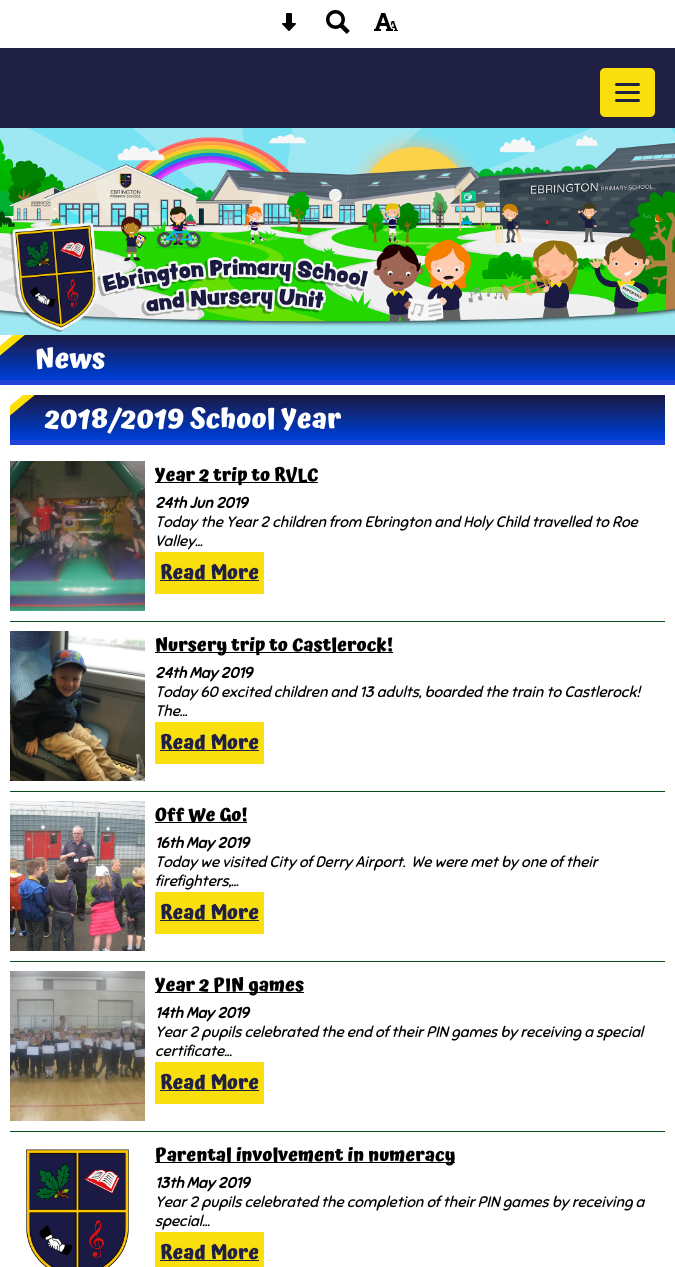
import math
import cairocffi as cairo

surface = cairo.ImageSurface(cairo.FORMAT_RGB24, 675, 1267)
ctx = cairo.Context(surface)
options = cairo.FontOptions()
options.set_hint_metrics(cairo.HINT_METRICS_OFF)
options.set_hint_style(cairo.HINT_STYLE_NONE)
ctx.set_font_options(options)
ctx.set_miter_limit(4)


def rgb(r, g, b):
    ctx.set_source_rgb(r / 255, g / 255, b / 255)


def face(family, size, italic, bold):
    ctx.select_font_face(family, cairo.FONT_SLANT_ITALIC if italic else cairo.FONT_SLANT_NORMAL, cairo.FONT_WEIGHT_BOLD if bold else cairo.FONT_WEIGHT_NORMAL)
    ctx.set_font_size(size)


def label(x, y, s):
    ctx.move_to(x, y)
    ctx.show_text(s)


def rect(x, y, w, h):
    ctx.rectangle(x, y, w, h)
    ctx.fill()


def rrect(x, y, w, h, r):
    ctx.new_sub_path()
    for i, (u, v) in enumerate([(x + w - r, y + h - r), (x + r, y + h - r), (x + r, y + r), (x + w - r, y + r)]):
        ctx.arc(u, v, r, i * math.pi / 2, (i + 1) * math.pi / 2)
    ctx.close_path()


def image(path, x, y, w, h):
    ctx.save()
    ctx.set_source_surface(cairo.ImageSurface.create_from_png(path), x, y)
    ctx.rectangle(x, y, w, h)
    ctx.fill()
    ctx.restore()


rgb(255, 255, 255)
ctx.paint()
image('image0.png', 282, 13, 14, 18)
image('image1.png', 326, 10, 24, 24)
image('image2.png', 374, 13, 24, 18)
rgb(32, 32, 68)
rect(0, 48, 675, 80)
rgb(249, 223, 14)
rrect(600, 68, 55, 49, 5)
ctx.fill()
rgb(32, 32, 68)
rrect(615, 83, 25, 3, 1.5)
ctx.fill()
rrect(615, 91, 25, 3, 1.5)
ctx.fill()
rrect(615, 99, 25, 3, 1.5)
ctx.fill()
image('image3.png', 0, 128, 675, 207)
rgb(31, 65, 214)
rect(0, 380, 675, 5)
image('image4.png', 0, 335, 675, 45)
face('Atma', 27.4, 0, 1)
rgb(255, 255, 255)
label(35, 368, 'News')
rgb(31, 65, 214)
rect(10, 440, 655, 5)
image('image5.png', 10, 395, 655, 45)
rgb(255, 255, 255)
label(45, 428, '2018/2019 School Year')
rgb(9, 77, 26)
rect(10, 621, 655, 1)
image('image6.png', 10, 461, 135, 150)
rgb(0, 0, 0)
rect(155, 482, 163, 1)
face('Atma', 18.4, 0, 1)
label(155, 481, 'Year 2 trip to RVLC')
face('Sniglet', 15.2, 1, 1)
label(155, 508, '24th Jun 2019')
face('Sniglet', 15.2, 1, 0)
label(155, 527, 'Today the Year 2 children from Ebrington and Holy Child travelled to Roe')
label(155, 546, 'Valley...')
rgb(249, 223, 14)
rect(155, 552, 109, 42)
rgb(32, 32, 68)
rect(160, 580, 99, 1)
face('Atma', 19.75, 0, 1)
label(160, 579, 'Read More')
rgb(9, 77, 26)
rect(10, 791, 655, 1)
image('image7.png', 10, 631, 135, 150)
rgb(0, 0, 0)
rect(155, 652, 238, 1)
face('Atma', 18.4, 0, 1)
label(155, 651, 'Nursery trip to Castlerock!')
face('Sniglet', 15.2, 1, 1)
label(155, 678, '24th May 2019')
face('Sniglet', 15.2, 1, 0)
label(155, 697, 'Today 60 excited children and 13 adults, boarded the train to Castlerock!')
label(155, 716, 'The...')
rgb(249, 223, 14)
rect(155, 722, 109, 42)
rgb(32, 32, 68)
rect(160, 750, 99, 1)
face('Atma', 19.75, 0, 1)
label(160, 749, 'Read More')
rgb(9, 77, 26)
rect(10, 961, 655, 1)
image('image8.png', 10, 801, 135, 150)
rgb(0, 0, 0)
rect(155, 822, 92, 1)
face('Atma', 18.4, 0, 1)
label(155, 821, 'Off We Go!')
face('Sniglet', 15.2, 1, 1)
label(155, 848, '16th May 2019')
face('Sniglet', 15.2, 1, 0)
label(155, 867, 'Today we visited City of Derry Airport.  We were met by one of their')
label(155, 886, 'firefighters,...')
rgb(249, 223, 14)
rect(155, 892, 109, 42)
rgb(32, 32, 68)
rect(160, 920, 99, 1)
face('Atma', 19.75, 0, 1)
label(160, 919, 'Read More')
rgb(9, 77, 26)
rect(10, 1131, 655, 1)
image('image9.png', 10, 971, 135, 150)
rgb(0, 0, 0)
rect(155, 992, 149, 1)
face('Atma', 18.4, 0, 1)
label(155, 991, 'Year 2 PIN games')
face('Sniglet', 15.2, 1, 1)
label(155, 1018, '14th May 2019')
face('Sniglet', 15.2, 1, 0)
label(155, 1037, 'Year 2 pupils celebrated the end of their PIN games by receiving a special')
label(155, 1056, 'certificate...')
rgb(249, 223, 14)
rect(155, 1062, 109, 42)
rgb(32, 32, 68)
rect(160, 1090, 99, 1)
face('Atma', 19.75, 0, 1)
label(160, 1089, 'Read More')
image('image10.png', 26, 1149, 103, 118)
rgb(0, 0, 0)
rect(155, 1162, 300, 1)
face('Atma', 18.4, 0, 1)
label(155, 1161, 'Parental involvement in numeracy')
face('Sniglet', 15.2, 1, 1)
label(155, 1188, '13th May 2019')
face('Sniglet', 15.2, 1, 0)
label(155, 1207, 'Year 2 pupils celebrated the completion of their PIN games by receiving a')
label(155, 1226, 'special...')
rgb(249, 223, 14)
rect(155, 1232, 109, 35)
rgb(32, 32, 68)
rect(160, 1260, 99, 1)
face('Atma', 19.75, 0, 1)
label(160, 1259, 'Read More')
surface.write_to_png('render.png')
